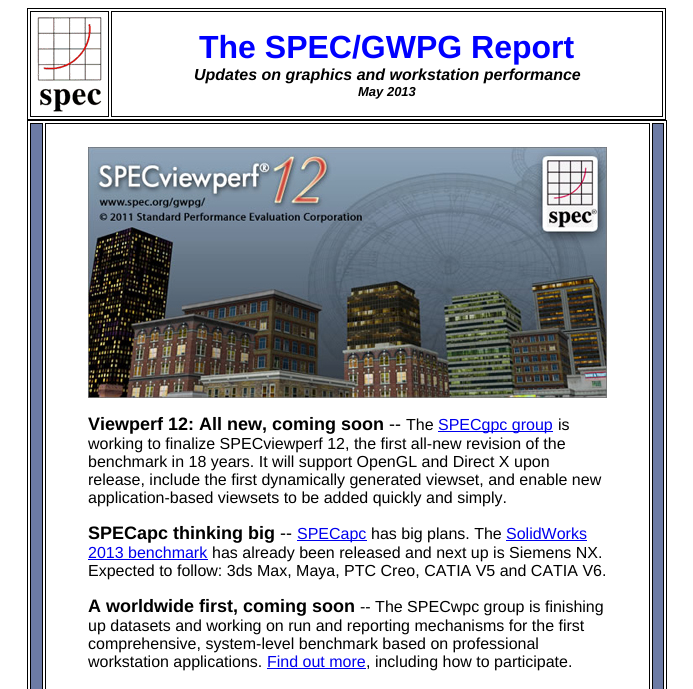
import math
import cairocffi as cairo

surface = cairo.ImageSurface(cairo.FORMAT_RGB24, 693, 689)
ctx = cairo.Context(surface)
options = cairo.FontOptions()
options.set_hint_metrics(cairo.HINT_METRICS_OFF)
options.set_hint_style(cairo.HINT_STYLE_NONE)
ctx.set_font_options(options)
ctx.set_miter_limit(4)


def rgb(r, g, b):
    ctx.set_source_rgb(r / 255, g / 255, b / 255)


def face(family, size, italic, bold):
    ctx.select_font_face(family, cairo.FONT_SLANT_ITALIC if italic else cairo.FONT_SLANT_NORMAL, cairo.FONT_WEIGHT_BOLD if bold else cairo.FONT_WEIGHT_NORMAL)
    ctx.set_font_size(size)


def label(x, y, s):
    ctx.move_to(x, y)
    ctx.show_text(s)


def rect(x, y, w, h):
    ctx.rectangle(x, y, w, h)
    ctx.fill()


def image(path, x, y, w, h):
    ctx.save()
    ctx.set_source_surface(cairo.ImageSurface.create_from_png(path), x, y)
    ctx.rectangle(x, y, w, h)
    ctx.fill()
    ctx.restore()


rgb(255, 255, 255)
ctx.paint()
ctx.rectangle(27.5, 8.5, 638, 111)
rgb(0, 0, 0)
ctx.set_line_width(1)
ctx.stroke()
ctx.rectangle(30.5, 11.5, 78, 105)
ctx.stroke()
image('image0.png', 37, 17, 65, 95)
ctx.rectangle(111.5, 11.5, 551, 105)
ctx.stroke()
face('Liberation Sans', 32, 0, 1)
rgb(0, 0, 255)
label(199, 58, 'The SPEC/GWPG Report')
face('Liberation Sans', 16, 1, 1)
rgb(0, 0, 0)
label(194, 80, 'Updates on graphics and workstation performance')
face('Liberation Sans', 13, 1, 1)
label(358, 96, 'May 2013')
ctx.rectangle(27.5, 120.5, 639, 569)
ctx.stroke()
rgb(108, 123, 165)
ctx.rectangle(30.5, 123.5, 12, 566)
ctx.fill_preserve()
rgb(0, 0, 0)
ctx.stroke()
ctx.rectangle(45.5, 123.5, 604, 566)
ctx.stroke()
image('image1.png', 88, 147, 519, 251)
face('Liberation Sans', 18, 0, 1)
label(88, 430, 'Viewperf 12: All new, coming soon')
face('Liberation Sans', 18, 0, 0)
label(389, 430, '--')
face('Liberation Sans', 16, 0, 0)
label(406, 430, 'The')
rgb(0, 0, 238)
rect(438, 431, 115, 1)
label(438, 430, 'SPECgpc group')
rgb(0, 0, 0)
label(558, 430, 'is')
label(88, 449, 'working to finalize SPECviewperf 12, the first all-new revision of the')
label(88, 467, 'benchmark in 18 years. It will support OpenGL and Direct X upon')
label(88, 485, 'release, include the first dynamically generated viewset, and enable new')
label(88, 503, 'application-based viewsets to be added quickly and simply.')
face('Liberation Sans', 18, 0, 1)
label(88, 539, 'SPECapc thinking big')
face('Liberation Sans', 18, 0, 0)
label(280, 539, '--')
rgb(0, 0, 238)
rect(297, 540, 70, 1)
face('Liberation Sans', 16, 0, 0)
label(297, 539, 'SPECapc')
rgb(0, 0, 0)
label(371, 539, 'has big plans. The')
rgb(0, 0, 238)
label(506, 539, 'SolidWorks')
rect(506, 540, 81, 1)
label(88, 558, '2013 benchmark')
rect(88, 559, 120, 1)
rgb(0, 0, 0)
label(212, 558, 'has already been released and next up is Siemens NX.')
label(88, 576, 'Expected to follow: 3ds Max, Maya, PTC Creo, CATIA V5 and CATIA V6.')
face('Liberation Sans', 18, 0, 1)
label(88, 612, 'A worldwide first, coming soon')
face('Liberation Sans', 16, 0, 0)
label(360, 612, '-- The SPECwpc group is finishing')
label(88, 631, 'up datasets and working on run and reporting mechanisms for the first')
label(88, 649, 'comprehensive, system-level benchmark based on professional')
label(88, 667, 'workstation applications.')
rgb(0, 0, 238)
label(267, 667, 'Find out more')
rgb(0, 0, 0)
label(366, 667, ', including how to participate.')
rgb(0, 0, 238)
rect(267, 668, 99, 1)
rgb(108, 123, 165)
ctx.rectangle(652.5, 123.5, 11, 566)
ctx.fill_preserve()
rgb(0, 0, 0)
ctx.stroke()
surface.write_to_png('render.png')
